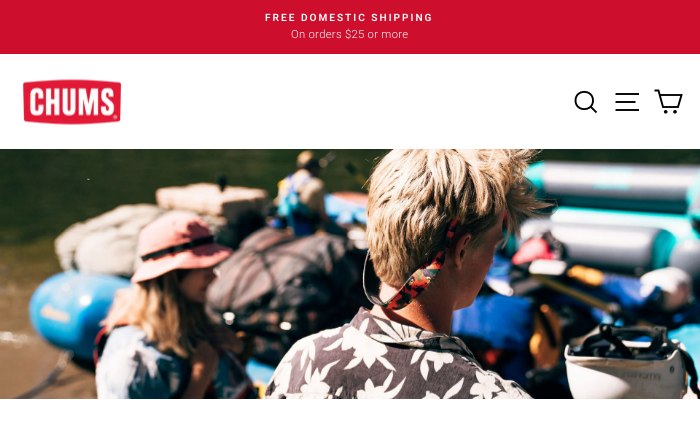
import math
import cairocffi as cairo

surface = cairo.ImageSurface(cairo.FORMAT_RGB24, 700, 425)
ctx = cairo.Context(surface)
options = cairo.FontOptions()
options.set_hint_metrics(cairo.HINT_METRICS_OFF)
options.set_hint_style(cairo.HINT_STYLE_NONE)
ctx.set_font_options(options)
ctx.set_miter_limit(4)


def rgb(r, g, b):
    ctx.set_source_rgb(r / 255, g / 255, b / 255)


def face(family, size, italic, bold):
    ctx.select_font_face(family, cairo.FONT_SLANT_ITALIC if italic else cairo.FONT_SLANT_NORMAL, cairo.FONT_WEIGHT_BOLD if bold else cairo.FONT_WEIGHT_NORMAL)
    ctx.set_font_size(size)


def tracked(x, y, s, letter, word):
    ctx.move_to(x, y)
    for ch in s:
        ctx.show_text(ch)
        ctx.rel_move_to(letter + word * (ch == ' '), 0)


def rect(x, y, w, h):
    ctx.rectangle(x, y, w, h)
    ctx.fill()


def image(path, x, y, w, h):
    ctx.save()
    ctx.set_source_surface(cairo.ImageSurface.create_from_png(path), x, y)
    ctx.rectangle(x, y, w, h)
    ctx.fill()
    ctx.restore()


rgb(255, 255, 255)
ctx.paint()
rgb(206, 14, 45)
rect(0, 0, 700, 54)
face('Roboto SemiBold', 10.1, 0, 0)
rgb(255, 255, 255)
tracked(265, 21, 'FREE DOMESTIC SHIPPING', 2, 0)
face('Roboto Light', 11.25, 0, 0)
tracked(291, 38, 'On orders $25 or more', 0.3, 0)
image('image0.png', 23, 79, 99, 46)
ctx.new_path()
ctx.move_to(593, 100.5)
ctx.curve_to(593, 112, 575.5, 112, 575.5, 100.5)
ctx.curve_to(575.5, 89, 593, 89, 593, 100.5)
ctx.close_path()
ctx.move_to(596.5, 112.5)
ctx.line_to(590.5, 106.5)
rgb(0, 0, 0)
ctx.set_line_width(1.9)
ctx.stroke()
ctx.new_path()
ctx.move_to(615.5, 94)
ctx.line_to(639, 94)
ctx.move_to(615.5, 102)
ctx.line_to(635.5, 102)
ctx.move_to(615.5, 110)
ctx.line_to(639, 110)
ctx.stroke()
ctx.new_path()
ctx.move_to(659.5, 95)
ctx.line_to(681.5, 95)
ctx.line_to(678, 107)
ctx.line_to(663, 107)
ctx.line_to(658.5, 90.5)
ctx.line_to(654.5, 90.5)
ctx.stroke()
ctx.arc(665.7, 111.8, 0.9, 0, 2 * math.pi)
ctx.stroke()
ctx.arc(675, 111.8, 0.9, 0, 2 * math.pi)
ctx.stroke()
image('image1.png', 0, 149, 700, 250)
surface.write_to_png('render.png')
